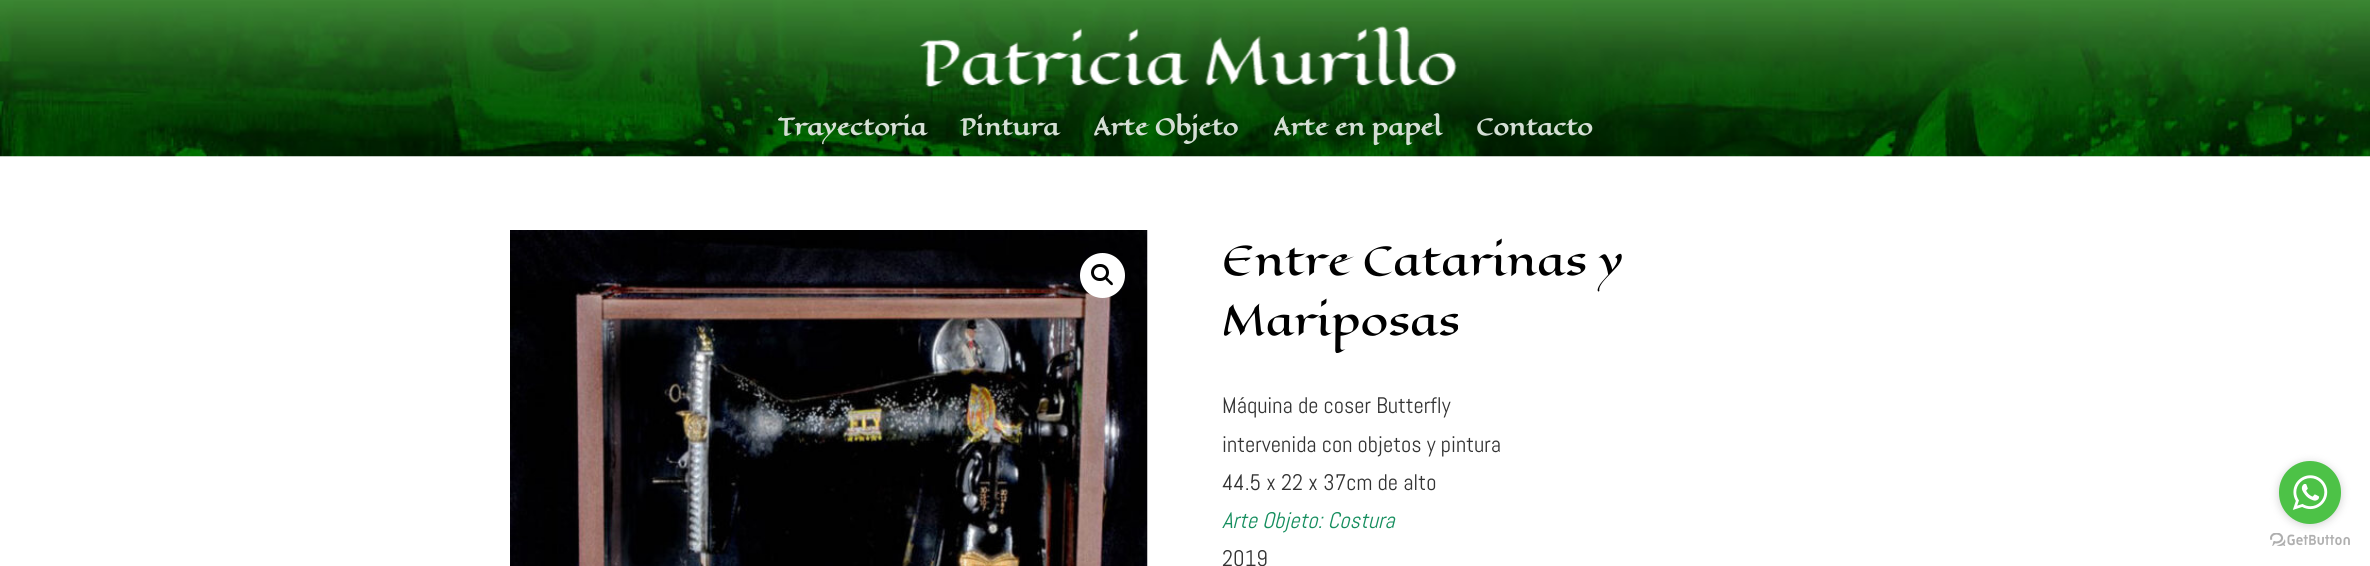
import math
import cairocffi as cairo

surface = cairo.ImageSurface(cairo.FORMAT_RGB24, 2370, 566)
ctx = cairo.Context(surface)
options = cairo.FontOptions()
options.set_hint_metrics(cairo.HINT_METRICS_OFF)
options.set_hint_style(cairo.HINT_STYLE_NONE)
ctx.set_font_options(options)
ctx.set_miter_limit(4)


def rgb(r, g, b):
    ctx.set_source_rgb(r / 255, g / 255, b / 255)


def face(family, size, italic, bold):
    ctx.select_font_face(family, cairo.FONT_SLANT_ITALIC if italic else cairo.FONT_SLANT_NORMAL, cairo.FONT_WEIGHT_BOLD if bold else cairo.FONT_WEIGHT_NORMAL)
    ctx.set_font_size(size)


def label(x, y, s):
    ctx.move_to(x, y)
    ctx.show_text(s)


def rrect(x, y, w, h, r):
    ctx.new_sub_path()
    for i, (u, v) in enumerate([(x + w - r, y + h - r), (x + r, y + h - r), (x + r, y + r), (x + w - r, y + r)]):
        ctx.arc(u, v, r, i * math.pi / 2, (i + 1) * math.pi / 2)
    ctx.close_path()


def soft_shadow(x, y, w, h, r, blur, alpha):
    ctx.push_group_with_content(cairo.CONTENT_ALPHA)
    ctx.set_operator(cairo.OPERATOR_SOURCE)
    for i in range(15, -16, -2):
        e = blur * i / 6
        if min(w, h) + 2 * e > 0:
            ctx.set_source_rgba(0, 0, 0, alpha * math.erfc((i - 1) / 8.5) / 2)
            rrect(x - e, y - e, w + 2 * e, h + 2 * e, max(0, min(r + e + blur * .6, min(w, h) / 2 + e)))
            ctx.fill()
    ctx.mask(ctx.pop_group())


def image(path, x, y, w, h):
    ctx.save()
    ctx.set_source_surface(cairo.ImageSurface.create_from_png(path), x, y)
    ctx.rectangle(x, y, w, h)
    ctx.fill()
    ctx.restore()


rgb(255, 255, 255)
ctx.paint()
image('image0.png', 0, 0, 2370, 157)
image('image1.png', 919, 26, 538, 61)
face('Eagle Lake', 22.5, 0, 1)
rgb(212, 222, 212)
label(778, 135, 'Trayectoria')
label(960, 135, 'Pintura')
label(1093, 135, 'Arte Objeto')
label(1273, 135, 'Arte en papel')
label(1476, 135, 'Contacto')
image('image2.png', 510, 230, 638, 336)
rgb(255, 255, 255)
ctx.arc(1102.5, 275.5, 22.5, 0, 2 * math.pi)
ctx.fill()
rrect(1092.5, 265.5, 15, 14, 7)
rgb(0, 0, 0)
ctx.set_line_width(3)
ctx.stroke()
ctx.new_path()
ctx.move_to(1105.5, 277.5)
ctx.curve_to(1107, 276.5, 1109, 279.5, 1110, 280.5)
ctx.curve_to(1111, 281, 1114, 283.5, 1112.5, 285)
ctx.curve_to(1111, 286, 1109, 283, 1108, 282)
ctx.curve_to(1107.5, 281.5, 1104, 279, 1105.5, 277.5)
ctx.close_path()
ctx.fill()
face('Eagle Lake', 40, 0, 0)
label(1222, 275, 'Entre Catarinas y')
label(1222, 335, 'Mariposas')
face('Abel', 22.5, 0, 0)
rgb(51, 51, 51)
label(1222, 413, 'Máquina de coser Butterfly')
label(1222, 452, 'intervenida con objetos y pintura')
label(1222, 490, '44.5 x 22 x 37cm de alto')
face('Abel', 22.5, 1, 0)
rgb(21, 142, 94)
label(1222, 528, 'Arte Objeto: Costura')
face('Abel', 22.5, 0, 0)
rgb(51, 51, 51)
label(1222, 566, '2019')
image('image4.png', 2270, 533, 80, 13)
rgb(136, 136, 136)
soft_shadow(2279, 463, 62, 62, 31, 4.5, 0.4)
rgb(77, 194, 71)
rrect(2279, 461, 62, 63, 31)
ctx.fill()
image('image3.png', 2292, 475, 36, 35)
surface.write_to_png('render.png')
